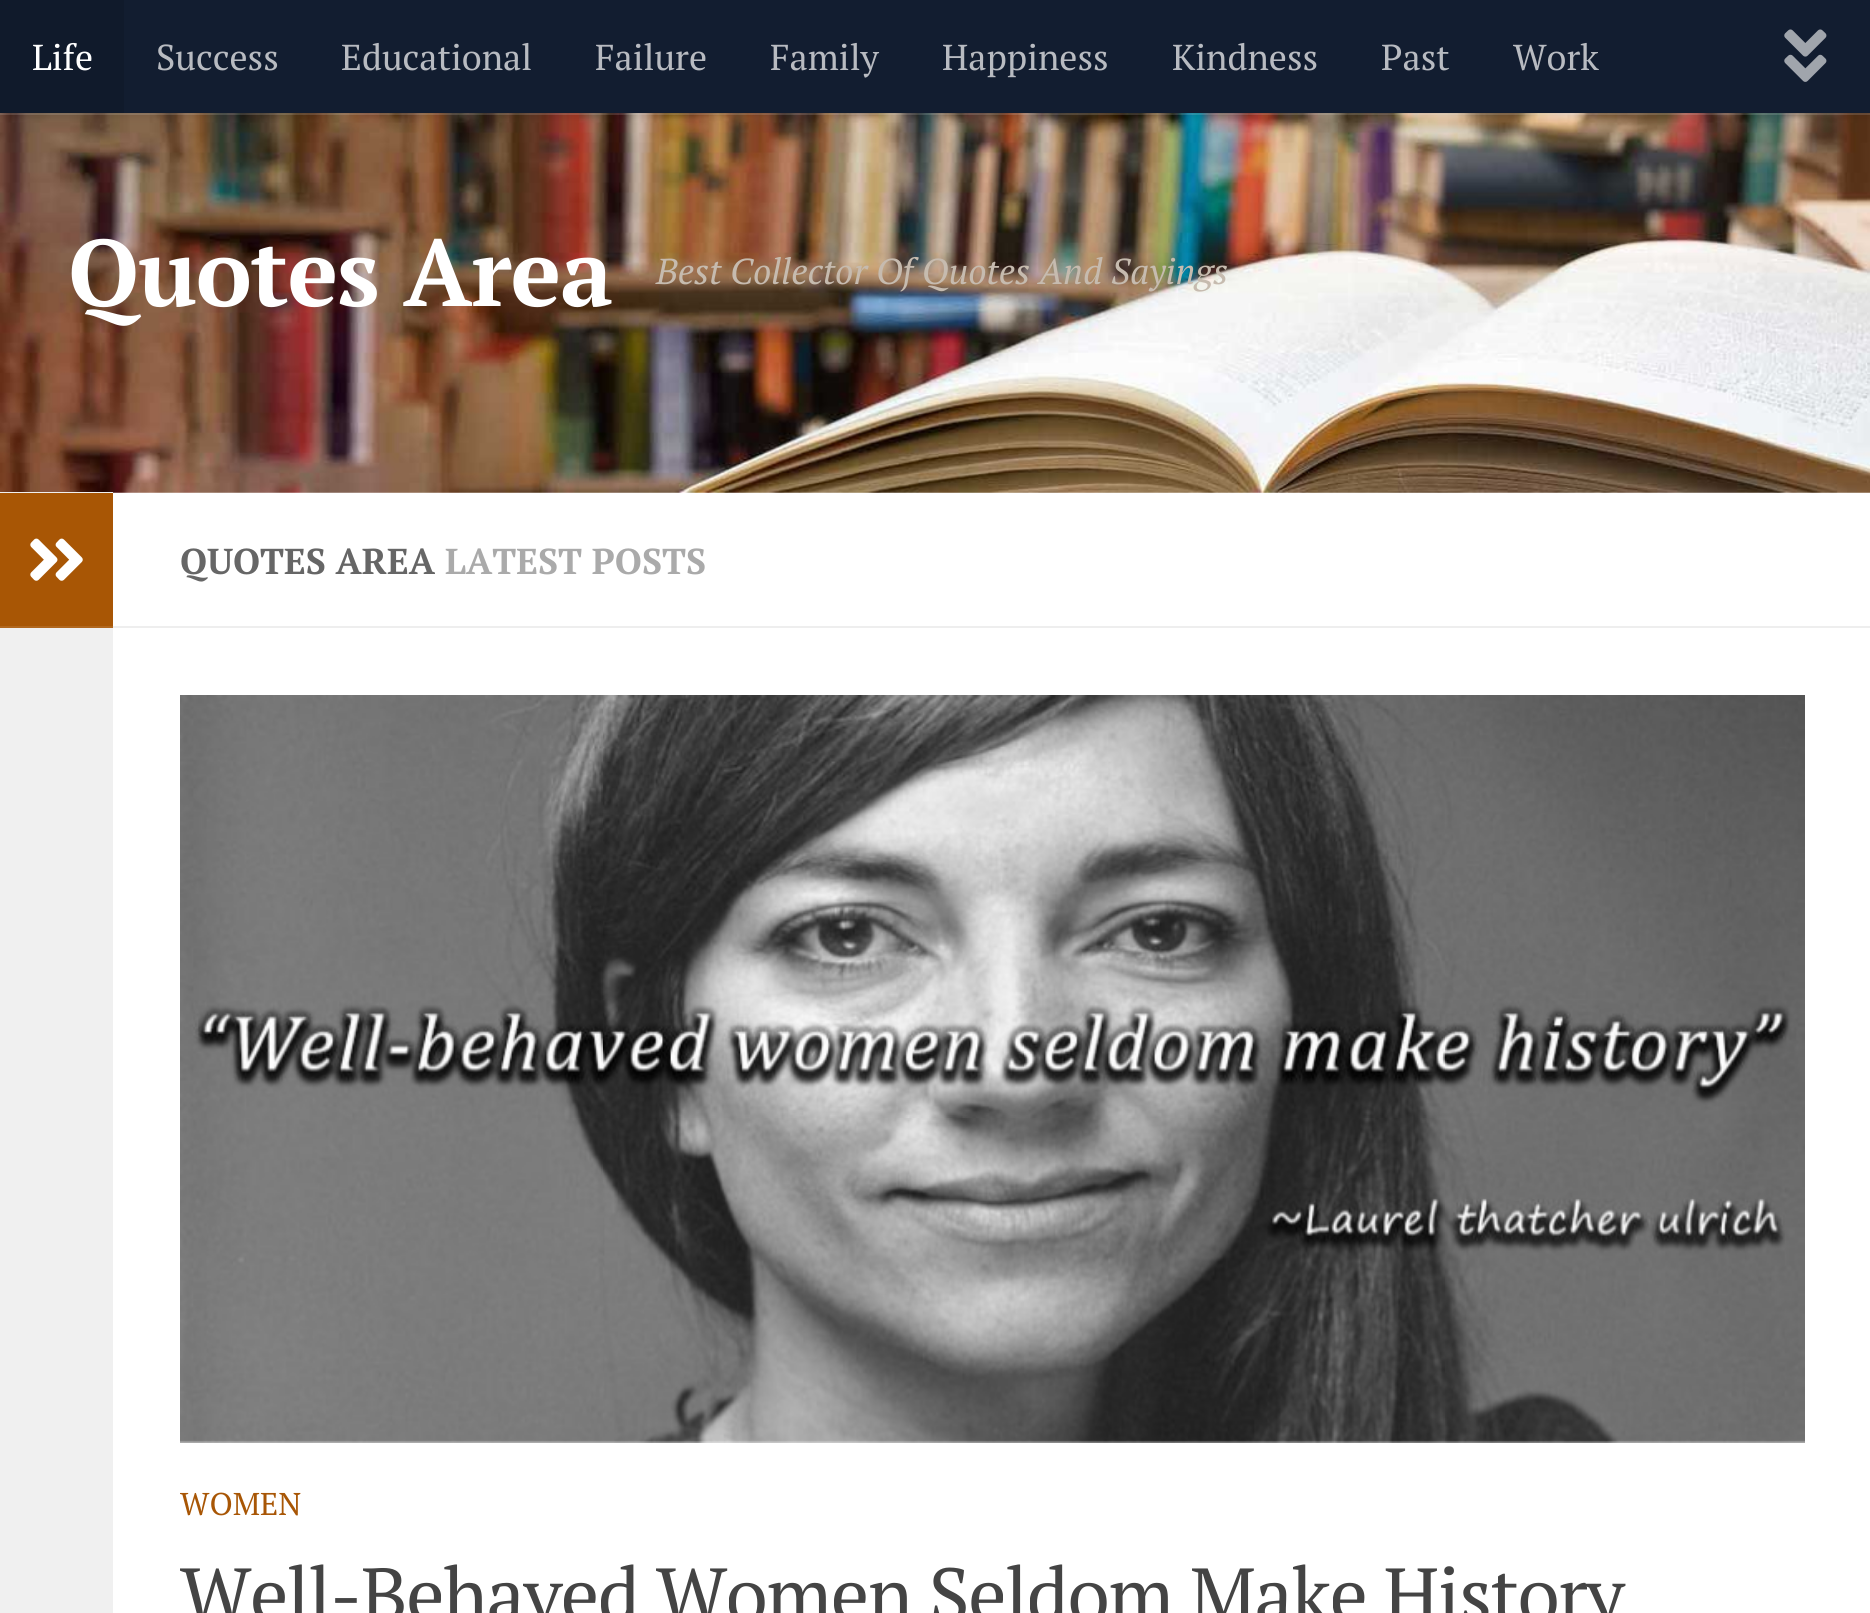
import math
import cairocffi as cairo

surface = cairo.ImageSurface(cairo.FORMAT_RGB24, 1870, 1613)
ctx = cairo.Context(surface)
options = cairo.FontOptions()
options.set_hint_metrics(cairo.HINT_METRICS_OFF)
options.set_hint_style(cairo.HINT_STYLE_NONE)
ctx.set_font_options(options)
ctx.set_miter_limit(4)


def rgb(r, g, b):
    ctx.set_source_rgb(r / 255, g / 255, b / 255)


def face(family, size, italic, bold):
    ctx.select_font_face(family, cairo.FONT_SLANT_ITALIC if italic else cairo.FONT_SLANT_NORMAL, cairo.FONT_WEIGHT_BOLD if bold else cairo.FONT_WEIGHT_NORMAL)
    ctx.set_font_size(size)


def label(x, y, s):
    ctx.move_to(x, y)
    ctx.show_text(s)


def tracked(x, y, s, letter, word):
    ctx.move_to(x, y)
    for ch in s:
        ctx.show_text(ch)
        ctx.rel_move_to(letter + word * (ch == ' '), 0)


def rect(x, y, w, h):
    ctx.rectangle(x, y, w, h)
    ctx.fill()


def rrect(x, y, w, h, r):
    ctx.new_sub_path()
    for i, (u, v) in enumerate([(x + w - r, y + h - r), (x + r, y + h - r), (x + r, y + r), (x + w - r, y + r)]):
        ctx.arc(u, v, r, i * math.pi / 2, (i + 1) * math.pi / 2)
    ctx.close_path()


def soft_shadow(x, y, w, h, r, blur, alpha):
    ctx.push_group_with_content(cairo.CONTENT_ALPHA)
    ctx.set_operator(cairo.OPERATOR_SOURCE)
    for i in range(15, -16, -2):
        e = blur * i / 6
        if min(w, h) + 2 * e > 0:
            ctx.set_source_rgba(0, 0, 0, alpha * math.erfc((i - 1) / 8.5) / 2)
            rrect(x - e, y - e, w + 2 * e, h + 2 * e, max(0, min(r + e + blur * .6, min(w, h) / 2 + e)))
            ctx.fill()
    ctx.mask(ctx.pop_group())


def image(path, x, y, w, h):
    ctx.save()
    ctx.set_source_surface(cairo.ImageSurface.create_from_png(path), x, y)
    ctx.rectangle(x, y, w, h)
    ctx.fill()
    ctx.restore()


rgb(255, 255, 255)
ctx.paint()
image('image1.png', 0, 113, 1870, 380)
ctx.set_source_rgba(1, 1, 1, 0.15)
rect(0, 113, 1870, 2)
rgb(0, 0, 0)
soft_shadow(0, 0, 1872, 113, 0, 5.5, 0.2)
rgb(18, 29, 48)
rect(124, 0, 1746, 113)
rgb(16, 26, 43)
rect(0, 0, 124, 113)
face('PT Serif', 36, 0, 0)
rgb(255, 255, 255)
label(32, 70, 'Life')
rgb(184, 187, 193)
label(156, 70, 'Success')
label(341, 70, 'Educational')
label(595, 70, 'Failure')
label(770, 70, 'Family')
label(942, 70, 'Happiness')
label(1172, 70, 'Kindness')
label(1381, 70, 'Past')
label(1513, 70, 'Work')
image('image0.png', 1784, 29, 43, 53)
face('PT Serif', 94.5, 0, 1)
rgb(255, 255, 255)
tracked(68, 306, 'Quotes Area', -1.1, 0)
face('PT Serif', 36, 1, 0)
rgb(198, 187, 175)
label(656, 284, 'Best Collector Of Quotes And Sayings')
rgb(240, 240, 240)
rect(0, 492, 113, 1121)
rgb(168, 86, 5)
rect(0, 493, 113, 133)
rgb(177, 103, 30)
rect(0, 626, 113, 2)
image('image2.png', 30, 538, 53, 43)
rgb(238, 238, 238)
rect(113, 626, 1757, 2)
face('PT Serif', 36, 0, 1)
rgb(102, 102, 102)
label(180, 574, 'QUOTES AREA')
rgb(170, 170, 170)
label(445, 574, 'LATEST POSTS')
image('image3.png', 180, 695, 1625, 748)
face('PT Serif', 31.5, 0, 0)
rgb(168, 86, 5)
label(180, 1515, 'WOMEN')
face('PT Serif', 76.5, 0, 0)
rgb(68, 68, 68)
tracked(180, 1622, 'Well-Behaved Women Seldom Make History', -1.55, 0)
surface.write_to_png('render.png')
